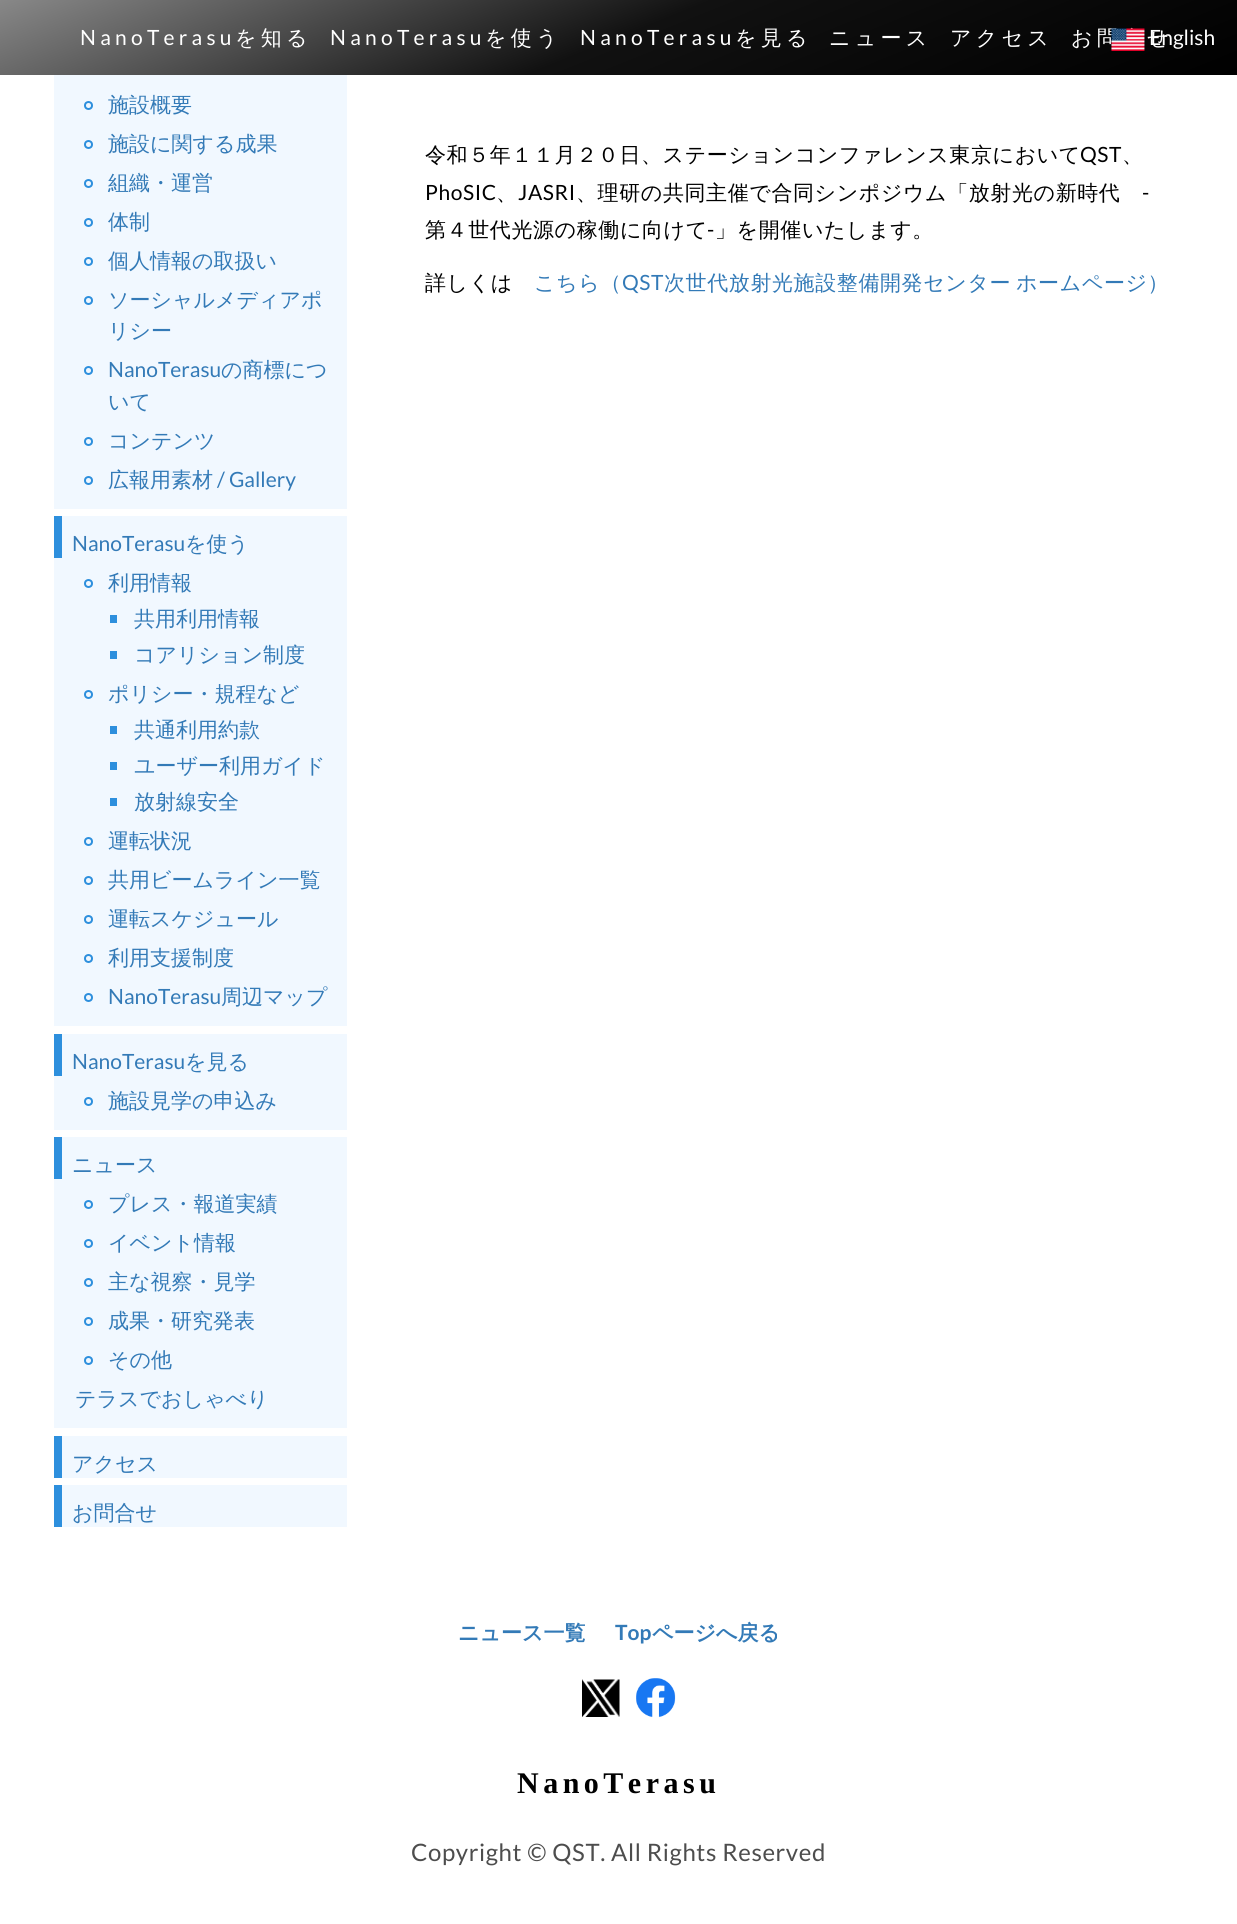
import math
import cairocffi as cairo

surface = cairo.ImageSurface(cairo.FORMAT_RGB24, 1237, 1924)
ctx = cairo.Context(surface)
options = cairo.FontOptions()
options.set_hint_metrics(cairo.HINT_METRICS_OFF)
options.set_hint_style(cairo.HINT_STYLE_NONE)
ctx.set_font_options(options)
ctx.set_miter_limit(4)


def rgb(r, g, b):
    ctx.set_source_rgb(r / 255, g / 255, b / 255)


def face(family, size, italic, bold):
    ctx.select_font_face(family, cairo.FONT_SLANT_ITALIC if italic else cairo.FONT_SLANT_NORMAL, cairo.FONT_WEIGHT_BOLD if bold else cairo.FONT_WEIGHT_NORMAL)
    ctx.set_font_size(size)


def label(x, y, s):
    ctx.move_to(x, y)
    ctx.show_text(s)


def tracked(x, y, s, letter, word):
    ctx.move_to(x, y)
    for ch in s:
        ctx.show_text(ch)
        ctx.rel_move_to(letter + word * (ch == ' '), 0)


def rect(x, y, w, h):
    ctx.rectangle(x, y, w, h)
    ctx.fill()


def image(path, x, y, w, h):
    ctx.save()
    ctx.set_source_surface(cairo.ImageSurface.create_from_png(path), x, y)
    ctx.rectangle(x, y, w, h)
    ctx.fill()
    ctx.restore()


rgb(255, 255, 255)
ctx.paint()
gradient = cairo.LinearGradient(519, -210, 719, 285)
gradient.add_color_stop_rgba(0, 0.533, 0.533, 0.533, 1)
gradient.add_color_stop_rgba(0.5, 0.067, 0.067, 0.067, 1)
gradient.add_color_stop_rgba(1, 0, 0, 0, 1)
ctx.set_source(gradient)
rect(0, 0, 1237, 75)
face('Lato', 21, 0, 0)
rgb(255, 255, 255)
tracked(80, 45, 'NanoTerasu', 4.25, 0)
face('WenQuanYi Zen Hei Medium', 21, 0, 0)
tracked(235, 45, 'を知る', 4.25, 0)
face('Lato', 21, 0, 0)
tracked(330, 45, 'NanoTerasu', 4.25, 0)
face('WenQuanYi Zen Hei Medium', 21, 0, 0)
tracked(485, 45, 'を使う', 4.25, 0)
face('Lato', 21, 0, 0)
tracked(580, 45, 'NanoTerasu', 4.25, 0)
face('WenQuanYi Zen Hei Medium', 21, 0, 0)
tracked(735, 45, 'を見る', 4.25, 0)
tracked(829, 45, 'ニュース', 4.25, 0)
tracked(950, 45, 'アクセス', 4.25, 0)
tracked(1071, 45, 'お問合せ', 4.25, 0)
image('image0.png', 1111, 28, 34, 23)
face('Lato', 21, 0, 0)
label(1149, 45, 'English')
rgb(241, 248, 255)
rect(54, 75, 293, 434)
ctx.new_path()
ctx.arc(88.5, 105.5, 3.5, 0, 2 * math.pi)
rgb(45, 143, 221)
ctx.stroke()
face('WenQuanYi Zen Hei Medium', 21, 0, 0)
rgb(51, 122, 183)
label(108, 112, '施設概要')
ctx.new_path()
ctx.arc(88.5, 144.5, 3.5, 0, 2 * math.pi)
rgb(45, 143, 221)
ctx.stroke()
rgb(51, 122, 183)
label(108, 151, '施設に関する成果')
ctx.new_path()
ctx.arc(88.5, 183.5, 3.5, 0, 2 * math.pi)
rgb(45, 143, 221)
ctx.stroke()
rgb(51, 122, 183)
label(108, 190, '組織・運営')
ctx.new_path()
ctx.arc(88.5, 222.5, 3.5, 0, 2 * math.pi)
rgb(45, 143, 221)
ctx.stroke()
rgb(51, 122, 183)
label(108, 229, '体制')
ctx.new_path()
ctx.arc(88.5, 261.5, 3.5, 0, 2 * math.pi)
rgb(45, 143, 221)
ctx.stroke()
rgb(51, 122, 183)
label(108, 268, '個人情報の取扱い')
ctx.new_path()
ctx.arc(88.5, 300.5, 3.5, 0, 2 * math.pi)
rgb(45, 143, 221)
ctx.stroke()
rgb(51, 122, 183)
label(108, 307, 'ソーシャルメディアポ')
label(108, 338, 'リシー')
ctx.new_path()
ctx.arc(88.5, 370.5, 3.5, 0, 2 * math.pi)
rgb(45, 143, 221)
ctx.stroke()
face('Lato', 21, 0, 0)
rgb(51, 122, 183)
label(108, 377, 'NanoTerasu')
face('WenQuanYi Zen Hei Medium', 21, 0, 0)
label(221, 377, 'の商標につ')
label(108, 409, 'いて')
ctx.new_path()
ctx.arc(88.5, 441.5, 3.5, 0, 2 * math.pi)
rgb(45, 143, 221)
ctx.stroke()
rgb(51, 122, 183)
label(108, 448, 'コンテンツ')
ctx.new_path()
ctx.arc(88.5, 480.5, 3.5, 0, 2 * math.pi)
rgb(45, 143, 221)
ctx.stroke()
rgb(51, 122, 183)
label(108, 487, '広報用素材')
face('Lato', 21, 0, 0)
label(217, 487, '/ Gallery')
rgb(241, 248, 255)
rect(62, 516, 285, 510)
rgb(45, 143, 221)
rect(54, 516, 8, 42)
rgb(51, 122, 183)
label(72, 551, 'NanoTerasu')
face('WenQuanYi Zen Hei Medium', 21, 0, 0)
label(185, 551, 'を使う')
rgb(241, 248, 255)
rect(54, 558, 8, 468)
ctx.new_path()
ctx.arc(88.5, 583.5, 3.5, 0, 2 * math.pi)
rgb(45, 143, 221)
ctx.stroke()
rgb(51, 122, 183)
label(108, 590, '利用情報')
rgb(45, 143, 221)
rect(110, 615, 7, 8)
rgb(51, 122, 183)
label(134, 626, '共用利用情報')
rgb(45, 143, 221)
rect(110, 651, 7, 8)
rgb(51, 122, 183)
label(134, 662, 'コアリション制度')
ctx.new_path()
ctx.arc(88.5, 694.5, 3.5, 0, 2 * math.pi)
rgb(45, 143, 221)
ctx.stroke()
rgb(51, 122, 183)
label(108, 701, 'ポリシー・規程など')
rgb(45, 143, 221)
rect(110, 726, 7, 8)
rgb(51, 122, 183)
label(134, 737, '共通利用約款')
rgb(45, 143, 221)
rect(110, 762, 7, 8)
rgb(51, 122, 183)
label(134, 773, 'ユーザー利用ガイド')
rgb(45, 143, 221)
rect(110, 798, 7, 8)
rgb(51, 122, 183)
label(134, 809, '放射線安全')
ctx.new_path()
ctx.arc(88.5, 841.5, 3.5, 0, 2 * math.pi)
rgb(45, 143, 221)
ctx.stroke()
rgb(51, 122, 183)
label(108, 848, '運転状況')
ctx.new_path()
ctx.arc(88.5, 880.5, 3.5, 0, 2 * math.pi)
rgb(45, 143, 221)
ctx.stroke()
rgb(51, 122, 183)
label(108, 887, '共用ビームライン一覧')
ctx.new_path()
ctx.arc(88.5, 919.5, 3.5, 0, 2 * math.pi)
rgb(45, 143, 221)
ctx.stroke()
rgb(51, 122, 183)
label(108, 926, '運転スケジュール')
ctx.new_path()
ctx.arc(88.5, 958.5, 3.5, 0, 2 * math.pi)
rgb(45, 143, 221)
ctx.stroke()
rgb(51, 122, 183)
label(108, 965, '利用支援制度')
ctx.new_path()
ctx.arc(88.5, 997.5, 3.5, 0, 2 * math.pi)
rgb(45, 143, 221)
ctx.stroke()
face('Lato', 21, 0, 0)
rgb(51, 122, 183)
label(108, 1004, 'NanoTerasu')
face('WenQuanYi Zen Hei Medium', 21, 0, 0)
label(221, 1004, '周辺マップ')
rgb(241, 248, 255)
rect(62, 1034, 285, 96)
rgb(45, 143, 221)
rect(54, 1034, 8, 42)
face('Lato', 21, 0, 0)
rgb(51, 122, 183)
label(72, 1069, 'NanoTerasu')
face('WenQuanYi Zen Hei Medium', 21, 0, 0)
label(185, 1069, 'を見る')
rgb(241, 248, 255)
rect(54, 1076, 8, 54)
ctx.new_path()
ctx.arc(88.5, 1101.5, 3.5, 0, 2 * math.pi)
rgb(45, 143, 221)
ctx.stroke()
rgb(51, 122, 183)
label(108, 1108, '施設見学の申込み')
rgb(241, 248, 255)
rect(62, 1137, 285, 291)
rgb(45, 143, 221)
rect(54, 1137, 8, 42)
rgb(51, 122, 183)
label(72, 1172, 'ニュース')
rgb(241, 248, 255)
rect(54, 1179, 8, 249)
ctx.new_path()
ctx.arc(88.5, 1204.5, 3.5, 0, 2 * math.pi)
rgb(45, 143, 221)
ctx.stroke()
rgb(51, 122, 183)
label(108, 1211, 'プレス・報道実績')
ctx.new_path()
ctx.arc(88.5, 1243.5, 3.5, 0, 2 * math.pi)
rgb(45, 143, 221)
ctx.stroke()
rgb(51, 122, 183)
label(108, 1250, 'イベント情報')
ctx.new_path()
ctx.arc(88.5, 1282.5, 3.5, 0, 2 * math.pi)
rgb(45, 143, 221)
ctx.stroke()
rgb(51, 122, 183)
label(108, 1289, '主な視察・見学')
ctx.new_path()
ctx.arc(88.5, 1321.5, 3.5, 0, 2 * math.pi)
rgb(45, 143, 221)
ctx.stroke()
rgb(51, 122, 183)
label(108, 1328, '成果・研究発表')
ctx.new_path()
ctx.arc(88.5, 1360.5, 3.5, 0, 2 * math.pi)
rgb(45, 143, 221)
ctx.stroke()
rgb(51, 122, 183)
label(108, 1367, 'その他')
label(75, 1406, 'テラスでおしゃべり')
rgb(241, 248, 255)
rect(62, 1436, 285, 42)
rgb(45, 143, 221)
rect(54, 1436, 8, 42)
rgb(51, 122, 183)
label(72, 1471, 'アクセス')
rgb(241, 248, 255)
rect(62, 1485, 285, 42)
rgb(45, 143, 221)
rect(54, 1485, 8, 42)
rgb(51, 122, 183)
label(72, 1520, 'お問合せ')
rgb(0, 0, 0)
tracked(425, 162, '令和５年１１月２０日、ステーションコンファレンス東京において', 0.6, 0)
face('Lato', 21, 0, 0)
tracked(1080, 162, 'QST', 0.6, 0)
face('WenQuanYi Zen Hei Medium', 21, 0, 0)
tracked(1122, 162, '、', 0.6, 0)
face('Lato', 21, 0, 0)
tracked(425, 200, 'PhoSIC', 0.6, 0)
tracked(518, 200, 'JASRI', 0.6, 0)
face('WenQuanYi Zen Hei Medium', 21, 0, 0)
tracked(576, 200, '、理研の共同主催で合同シンポジウム「放射光の新時代', 0.6, 0)
face('Lato', 21, 0, 0)
tracked(1142, 200, '-', 0.6, 0)
face('WenQuanYi Zen Hei Medium', 21, 0, 0)
tracked(496, 200, '、', 0.6, 0)
tracked(425, 237, '第４世代光源の稼働に向けて', 0.6, 0)
face('Lato', 21, 0, 0)
tracked(707, 237, '-', 0.6, 0)
face('WenQuanYi Zen Hei Medium', 21, 0, 0)
tracked(715, 237, '」を開催いたします。', 0.6, 0)
tracked(425, 290, '詳しくは', 0.6, 0)
rgb(51, 122, 183)
tracked(534, 290, 'こちら（', 0.6, 0)
face('Lato', 21, 0, 0)
tracked(622, 290, 'QST', 0.6, 0)
face('WenQuanYi Zen Hei Medium', 21, 0, 0)
tracked(664, 290, '次世代放射光施設整備開発センター ホームページ）', 0.6, -2)
face('WenQuanYi Zen Hei', 21, 0, 1)
label(458, 1640, 'ニュース一覧')
face('Lato', 21, 0, 1)
label(615, 1640, 'Top')
face('WenQuanYi Zen Hei', 21, 0, 1)
label(652, 1640, 'ページへ戻る')
image('image1.png', 582, 1679, 38, 38)
image('image2.png', 636, 1678, 40, 40)
face('Liberation Serif', 30, 0, 1)
rgb(0, 0, 0)
tracked(517, 1793, 'NanoTerasu', 4.5, 0)
face('Lato', 24, 0, 0)
rgb(77, 77, 77)
tracked(411, 1861, 'Copyright © QST. All Rights Reserved', 0.6, 0)
surface.write_to_png('render.png')
